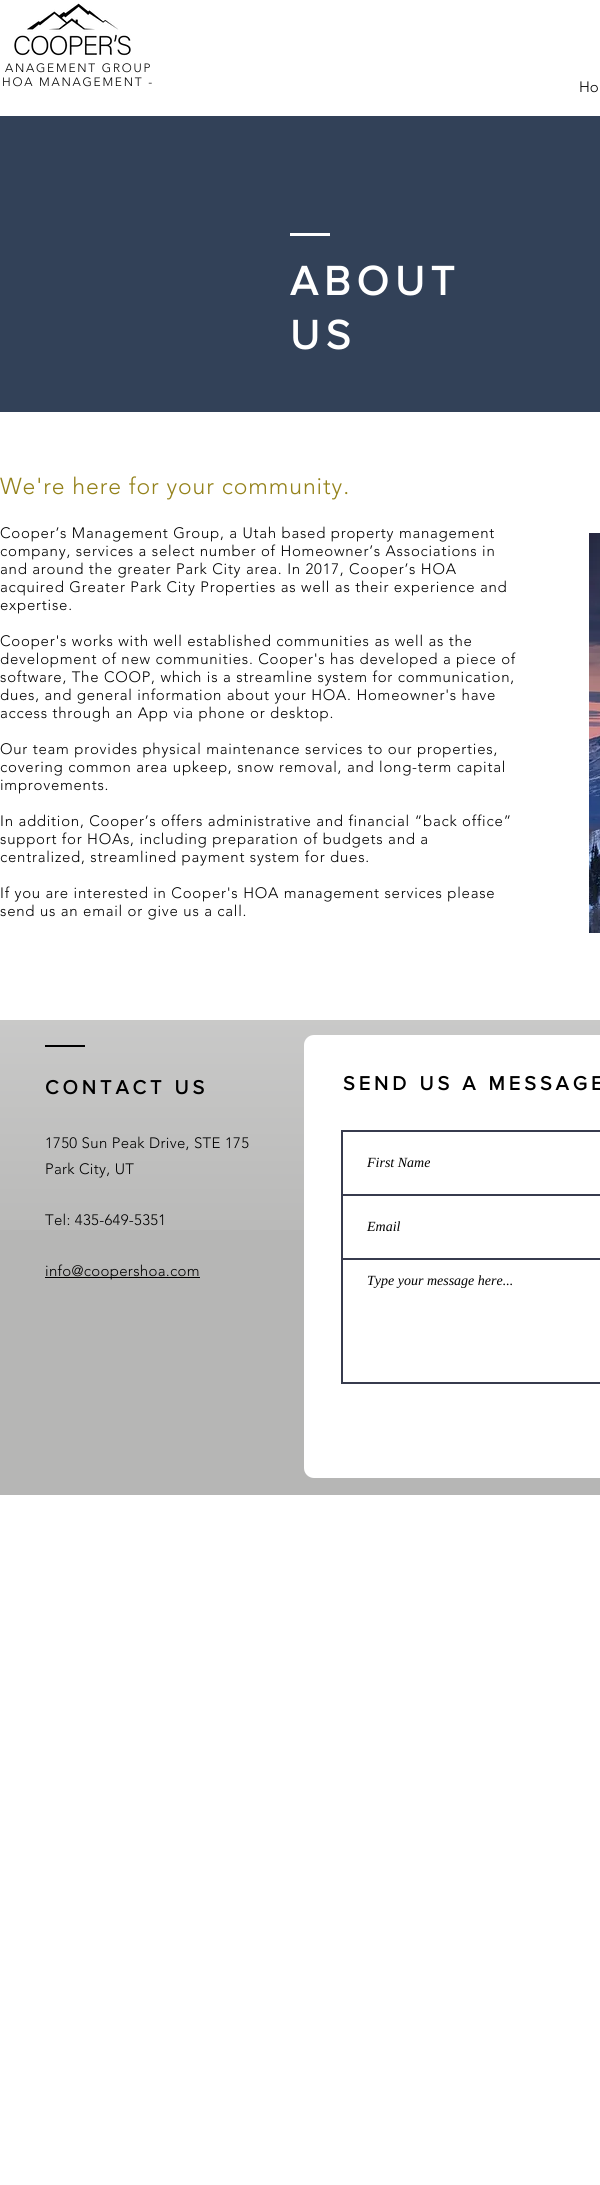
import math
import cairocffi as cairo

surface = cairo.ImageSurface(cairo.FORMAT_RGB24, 600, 2185)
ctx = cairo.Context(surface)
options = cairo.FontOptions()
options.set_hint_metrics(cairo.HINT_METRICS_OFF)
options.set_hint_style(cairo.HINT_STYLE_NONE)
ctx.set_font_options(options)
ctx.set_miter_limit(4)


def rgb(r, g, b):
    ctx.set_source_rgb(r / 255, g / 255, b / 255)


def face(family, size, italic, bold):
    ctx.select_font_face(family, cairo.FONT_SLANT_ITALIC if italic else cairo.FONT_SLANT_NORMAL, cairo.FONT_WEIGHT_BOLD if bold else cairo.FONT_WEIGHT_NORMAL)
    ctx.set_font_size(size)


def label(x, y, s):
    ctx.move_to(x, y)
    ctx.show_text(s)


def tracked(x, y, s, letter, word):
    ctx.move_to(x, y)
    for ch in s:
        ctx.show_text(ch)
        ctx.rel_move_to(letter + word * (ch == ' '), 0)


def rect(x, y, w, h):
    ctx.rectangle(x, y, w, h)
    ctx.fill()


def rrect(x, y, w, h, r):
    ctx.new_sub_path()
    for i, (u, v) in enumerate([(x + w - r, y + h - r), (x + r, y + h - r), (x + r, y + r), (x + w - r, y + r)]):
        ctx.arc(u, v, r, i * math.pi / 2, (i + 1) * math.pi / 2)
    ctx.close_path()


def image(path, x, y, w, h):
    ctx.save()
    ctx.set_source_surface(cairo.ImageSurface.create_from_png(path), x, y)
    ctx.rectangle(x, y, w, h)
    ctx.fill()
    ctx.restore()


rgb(255, 255, 255)
ctx.paint()
image('image0.png', 14, 3, 117, 53)
face('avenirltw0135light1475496 Light', 12, 0, 0)
rgb(0, 0, 0)
tracked(5, 72, 'ANAGEMENT GROUP', 1.75, 0)
tracked(2, 86, 'HOA MANAGEMENT -', 1.75, 0)
face('avenirltw0135light1475496 Light', 15, 0, 0)
label(579, 92, 'Ho')
rgb(50, 65, 88)
rect(0, 116, 600, 296)
rgb(255, 255, 255)
rect(290, 233, 40, 3)
face('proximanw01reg', 42, 0, 1)
tracked(290, 295, 'ABOUT', 6.25, 0)
tracked(290, 349, 'US', 6.25, 0)
face('avenirltw0135light1475496 Light', 23, 0, 0)
rgb(148, 130, 27)
tracked(0, 494, 'We\'re here for your community.', 0.9, 0)
face('avenirltw0135light1475496 Light', 15, 0, 0)
rgb(0, 0, 0)
tracked(0, 538, 'Cooper’s Management Group, a Utah based property management', 0.75, 0)
tracked(0, 556, 'company, services a select number of Homeowner’s Associations in', 0.75, 0)
tracked(0, 574, 'and around the greater Park City area. In 2017, Cooper’s HOA', 0.75, 0)
tracked(0, 592, 'acquired Greater Park City Properties as well as their experience and', 0.75, 0)
tracked(0, 610, 'expertise.', 0.75, 0)
tracked(0, 646, 'Cooper\'s works with well established communities as well as the', 0.75, 0)
tracked(0, 664, 'development of new communities. Cooper\'s has developed a piece of', 0.75, 0)
tracked(0, 682, 'software, The COOP, which is a streamline system for communication,', 0.75, 0)
tracked(0, 700, 'dues, and general information about your HOA. Homeowner\'s have', 0.75, 0)
tracked(0, 718, 'access through an App via phone or desktop.', 0.75, 0)
tracked(0, 754, 'Our team provides physical maintenance services to our properties,', 0.75, 0)
tracked(0, 772, 'covering common area upkeep, snow removal, and long-term capital', 0.75, 0)
tracked(0, 790, 'improvements.', 0.75, 0)
tracked(0, 826, 'In addition, Cooper’s offers administrative and financial “back office”', 0.75, 0)
tracked(0, 844, 'support for HOAs, including preparation of budgets and a', 0.75, 0)
tracked(0, 862, 'centralized, streamlined payment system for dues.', 0.75, 0)
tracked(0, 898, 'If you are interested in Cooper\'s HOA management services please', 0.75, 0)
tracked(0, 916, 'send us an email or give us a call.', 0.75, 0)
image('image1.png', 589, 533, 11, 400)
rgb(182, 182, 181)
rect(0, 1020, 600, 475)
image('image2.png', 0, 1020, 600, 210)
rgb(0, 0, 0)
rect(45, 1045, 40, 2)
face('proximanw01reg', 20, 0, 1)
tracked(45, 1094, 'CONTACT US', 4, 0)
rgb(255, 255, 255)
rrect(304, 1035, 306, 443, 10)
ctx.fill()
rgb(0, 0, 0)
tracked(343, 1090, 'SEND US A MESSAGE', 4, 0)
ctx.rectangle(342, 1131, 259, 64)
rgb(55, 59, 77)
ctx.stroke()
face('Liberation Serif', 14, 1, 0)
rgb(0, 0, 0)
label(367, 1167, 'First Name')
ctx.rectangle(342, 1195, 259, 64)
rgb(55, 59, 77)
ctx.stroke()
rgb(0, 0, 0)
label(367, 1231, 'Email')
ctx.rectangle(342, 1259, 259, 124)
rgb(55, 59, 77)
ctx.stroke()
rgb(0, 0, 0)
label(367, 1285, 'Type your message here...')
face('avenirltw0135light1475496 Light', 15, 0, 0)
tracked(45, 1148, '1750 Sun Peak Drive, STE 175', 0.3, 0)
tracked(45, 1174, 'Park City, UT', 0.3, 0)
tracked(45, 1225, 'Tel: 435-649-5351', 0.3, 0)
rect(45, 1277, 155, 1)
tracked(45, 1276, 'info@coopershoa.com', 0.3, 0)
surface.write_to_png('render.png')
